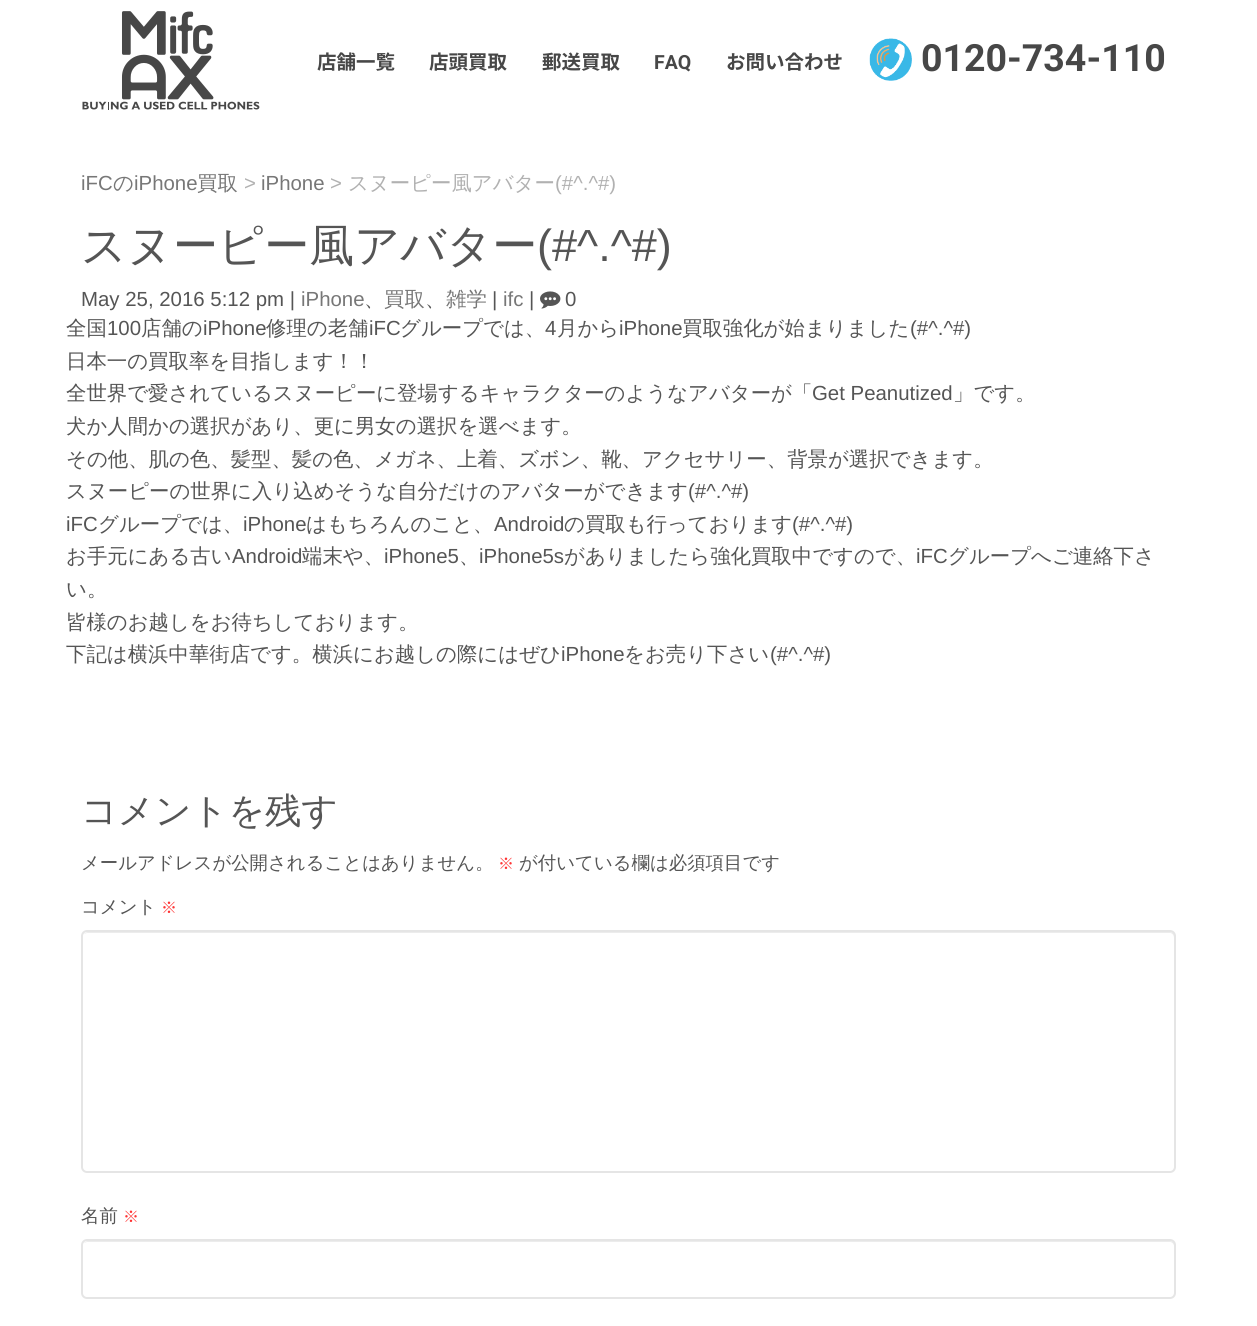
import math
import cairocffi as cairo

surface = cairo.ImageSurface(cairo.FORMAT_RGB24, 1257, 1326)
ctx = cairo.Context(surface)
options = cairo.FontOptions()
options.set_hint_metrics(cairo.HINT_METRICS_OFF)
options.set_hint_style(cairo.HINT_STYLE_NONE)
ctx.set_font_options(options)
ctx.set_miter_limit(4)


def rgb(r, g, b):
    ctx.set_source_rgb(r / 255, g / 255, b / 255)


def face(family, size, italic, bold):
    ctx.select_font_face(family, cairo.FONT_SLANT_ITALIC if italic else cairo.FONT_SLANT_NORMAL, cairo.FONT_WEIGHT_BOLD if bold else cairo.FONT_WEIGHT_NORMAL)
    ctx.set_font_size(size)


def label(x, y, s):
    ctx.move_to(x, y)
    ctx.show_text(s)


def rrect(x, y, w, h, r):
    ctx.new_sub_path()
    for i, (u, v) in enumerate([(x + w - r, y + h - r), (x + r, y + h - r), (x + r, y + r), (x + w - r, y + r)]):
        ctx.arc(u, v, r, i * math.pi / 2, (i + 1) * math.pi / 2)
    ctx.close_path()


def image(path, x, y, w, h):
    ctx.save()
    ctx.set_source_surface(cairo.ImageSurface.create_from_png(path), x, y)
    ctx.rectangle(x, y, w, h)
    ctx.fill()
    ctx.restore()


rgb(255, 255, 255)
ctx.paint()
image('image0.png', 82, 11, 178, 99)
face('Noto Sans JP', 19.5, 0, 1)
rgb(71, 71, 71)
label(317, 69, '店舗一覧')
label(429, 69, '店頭買取')
label(542, 69, '郵送買取')
face('Roboto', 19.5, 0, 1)
label(654, 69, 'FAQ')
face('Noto Sans JP', 19.5, 0, 1)
label(726, 69, 'お問い合わせ')
image('image1.png', 869, 38, 43, 43)
face('Roboto', 37.5, 0, 1)
label(921, 71, '0120-734-110')
face('Liberation Sans', 20.4, 0, 0)
rgb(119, 119, 119)
label(81, 190, 'iFC')
face('WenQuanYi Zen Hei Medium', 20.4, 0, 0)
label(113, 190, 'の')
face('Liberation Sans', 20.4, 0, 0)
label(134, 190, 'iPhone')
face('WenQuanYi Zen Hei Medium', 20.4, 0, 0)
label(197, 190, '買取')
face('Liberation Sans', 20.4, 0, 0)
rgb(177, 177, 177)
label(244, 190, '>')
rgb(119, 119, 119)
label(261, 190, 'iPhone')
rgb(177, 177, 177)
label(330, 190, '>')
face('WenQuanYi Zen Hei Medium', 20.4, 0, 0)
label(348, 190, 'スヌーピー風アバター')
face('Liberation Sans', 20.4, 0, 0)
label(555, 190, '(#^.^#)')
face('WenQuanYi Zen Hei Medium', 45, 0, 0)
rgb(85, 85, 85)
label(81, 261, 'スヌーピー風アバター')
face('Liberation Sans', 45, 0, 0)
label(537, 261, '(#^.^#)')
face('Liberation Sans', 20.4, 0, 0)
label(81, 306, 'May 25, 2016 5:12 pm |')
rgb(119, 119, 119)
label(301, 306, 'iPhone')
face('WenQuanYi Zen Hei Medium', 20.4, 0, 0)
rgb(85, 85, 85)
label(364, 306, '、')
rgb(119, 119, 119)
label(384, 306, '買取')
rgb(85, 85, 85)
label(425, 306, '、')
rgb(119, 119, 119)
label(446, 306, '雑学')
face('Liberation Sans', 20.4, 0, 0)
rgb(85, 85, 85)
label(492, 306, '|')
rgb(119, 119, 119)
label(503, 306, 'ifc')
rgb(85, 85, 85)
label(529, 306, '|')
image('image2.png', 540, 291, 21, 18)
label(565, 306, '0')
face('WenQuanYi Zen Hei Medium', 20.4, 0, 0)
label(66, 335, '全国')
face('Liberation Sans', 20.4, 0, 0)
label(107, 335, '100')
face('WenQuanYi Zen Hei Medium', 20.4, 0, 0)
label(141, 335, '店舗の')
face('Liberation Sans', 20.4, 0, 0)
label(203, 335, 'iPhone')
face('WenQuanYi Zen Hei Medium', 20.4, 0, 0)
label(266, 335, '修理の老舗')
face('Liberation Sans', 20.4, 0, 0)
label(369, 335, 'iFC')
face('WenQuanYi Zen Hei Medium', 20.4, 0, 0)
label(400, 335, 'グループでは、')
face('Liberation Sans', 20.4, 0, 0)
label(545, 335, '4')
face('WenQuanYi Zen Hei Medium', 20.4, 0, 0)
label(557, 335, '月から')
face('Liberation Sans', 20.4, 0, 0)
label(619, 335, 'iPhone')
face('WenQuanYi Zen Hei Medium', 20.4, 0, 0)
label(682, 335, '買取強化が始まりました')
face('Liberation Sans', 20.4, 0, 0)
label(910, 335, '(#^.^#)')
face('WenQuanYi Zen Hei Medium', 20.4, 0, 0)
label(66, 368, '日本一の買取率を目指します！！')
label(66, 400, '全世界で愛されているスヌーピーに登場するキャラクターのようなアバターが「')
face('Liberation Sans', 20.4, 0, 0)
label(812, 400, 'Get Peanutized')
face('WenQuanYi Zen Hei Medium', 20.4, 0, 0)
label(953, 400, '」です。')
label(66, 433, '犬か人間かの選択があり、更に男女の選択を選べます。')
label(66, 466, 'その他、肌の色、髪型、髪の色、メガネ、上着、ズボン、靴、アクセサリー、背景が選択できます。')
label(66, 498, 'スヌーピーの世界に入り込めそうな自分だけのアバターができます')
face('Liberation Sans', 20.4, 0, 0)
label(688, 498, '(#^.^#)')
label(66, 531, 'iFC')
face('WenQuanYi Zen Hei Medium', 20.4, 0, 0)
label(98, 531, 'グループでは、')
face('Liberation Sans', 20.4, 0, 0)
label(243, 531, 'iPhone')
face('WenQuanYi Zen Hei Medium', 20.4, 0, 0)
label(306, 531, 'はもちろんのこと、')
face('Liberation Sans', 20.4, 0, 0)
label(494, 531, 'Android')
face('WenQuanYi Zen Hei Medium', 20.4, 0, 0)
label(564, 531, 'の買取も行っております')
face('Liberation Sans', 20.4, 0, 0)
label(792, 531, '(#^.^#)')
face('WenQuanYi Zen Hei Medium', 20.4, 0, 0)
label(66, 563, 'お手元にある古い')
face('Liberation Sans', 20.4, 0, 0)
label(232, 563, 'Android')
face('WenQuanYi Zen Hei Medium', 20.4, 0, 0)
label(302, 563, '端末や、')
face('Liberation Sans', 20.4, 0, 0)
label(384, 563, 'iPhone5')
face('WenQuanYi Zen Hei Medium', 20.4, 0, 0)
label(459, 563, '、')
face('Liberation Sans', 20.4, 0, 0)
label(479, 563, 'iPhone5s')
face('WenQuanYi Zen Hei Medium', 20.4, 0, 0)
label(564, 563, 'がありましたら強化買取中ですので、')
face('Liberation Sans', 20.4, 0, 0)
label(916, 563, 'iFC')
face('WenQuanYi Zen Hei Medium', 20.4, 0, 0)
label(948, 563, 'グループへご連絡下さ')
label(66, 596, 'い。')
label(66, 629, '皆様のお越しをお待ちしております。')
label(66, 661, '下記は横浜中華街店です。横浜にお越しの際にはぜひ')
face('Liberation Sans', 20.4, 0, 0)
label(561, 661, 'iPhone')
face('WenQuanYi Zen Hei Medium', 20.4, 0, 0)
label(624, 661, 'をお売り下さい')
face('Liberation Sans', 20.4, 0, 0)
label(770, 661, '(#^.^#)')
face('WenQuanYi Zen Hei Medium', 36, 0, 0)
label(81, 823, 'コメントを残す')
face('WenQuanYi Zen Hei Medium', 18.4, 0, 0)
label(81, 869, 'メールアドレスが公開されることはありません。')
face('WenQuanYi Zen Hei Medium', 16, 0, 0)
rgb(255, 51, 51)
label(498, 869, '※')
face('WenQuanYi Zen Hei Medium', 18.4, 0, 0)
rgb(85, 85, 85)
label(519, 869, 'が付いている欄は必須項目です')
label(81, 913, 'コメント')
face('WenQuanYi Zen Hei Medium', 16, 0, 0)
rgb(255, 51, 51)
label(161, 913, '※')
rgb(236, 236, 236)
ctx.new_path()
ctx.move_to(87, 933)
ctx.line_to(1170, 933)
ctx.curve_to(1172, 933, 1174, 935, 1174, 938)
ctx.line_to(1174, 1168)
ctx.line_to(1173, 1171)
ctx.curve_to(1174, 1170, 1175, 1168, 1175, 1167)
ctx.line_to(1175, 937)
ctx.curve_to(1175, 934, 1173, 932, 1170, 932)
ctx.line_to(88, 932)
ctx.curve_to(86, 932, 85, 933, 84, 934)
ctx.close_path()
ctx.fill()
rrect(82, 931, 1093, 241, 5)
rgb(229, 229, 229)
ctx.stroke()
face('WenQuanYi Zen Hei Medium', 18.4, 0, 0)
rgb(85, 85, 85)
label(81, 1222, '名前')
face('WenQuanYi Zen Hei Medium', 16, 0, 0)
rgb(255, 51, 51)
label(123, 1222, '※')
rgb(236, 236, 236)
ctx.new_path()
ctx.move_to(87, 1242)
ctx.line_to(1170, 1242)
ctx.curve_to(1172, 1242, 1174, 1244, 1174, 1246)
ctx.line_to(1174, 1294)
ctx.line_to(1173, 1297)
ctx.curve_to(1174, 1296, 1175, 1294, 1175, 1293)
ctx.line_to(1175, 1246)
ctx.curve_to(1175, 1243, 1173, 1241, 1170, 1241)
ctx.line_to(88, 1241)
ctx.curve_to(86, 1241, 85, 1242, 84, 1243)
ctx.close_path()
ctx.fill()
rrect(82, 1240, 1093, 58, 5)
rgb(229, 229, 229)
ctx.stroke()
surface.write_to_png('render.png')
